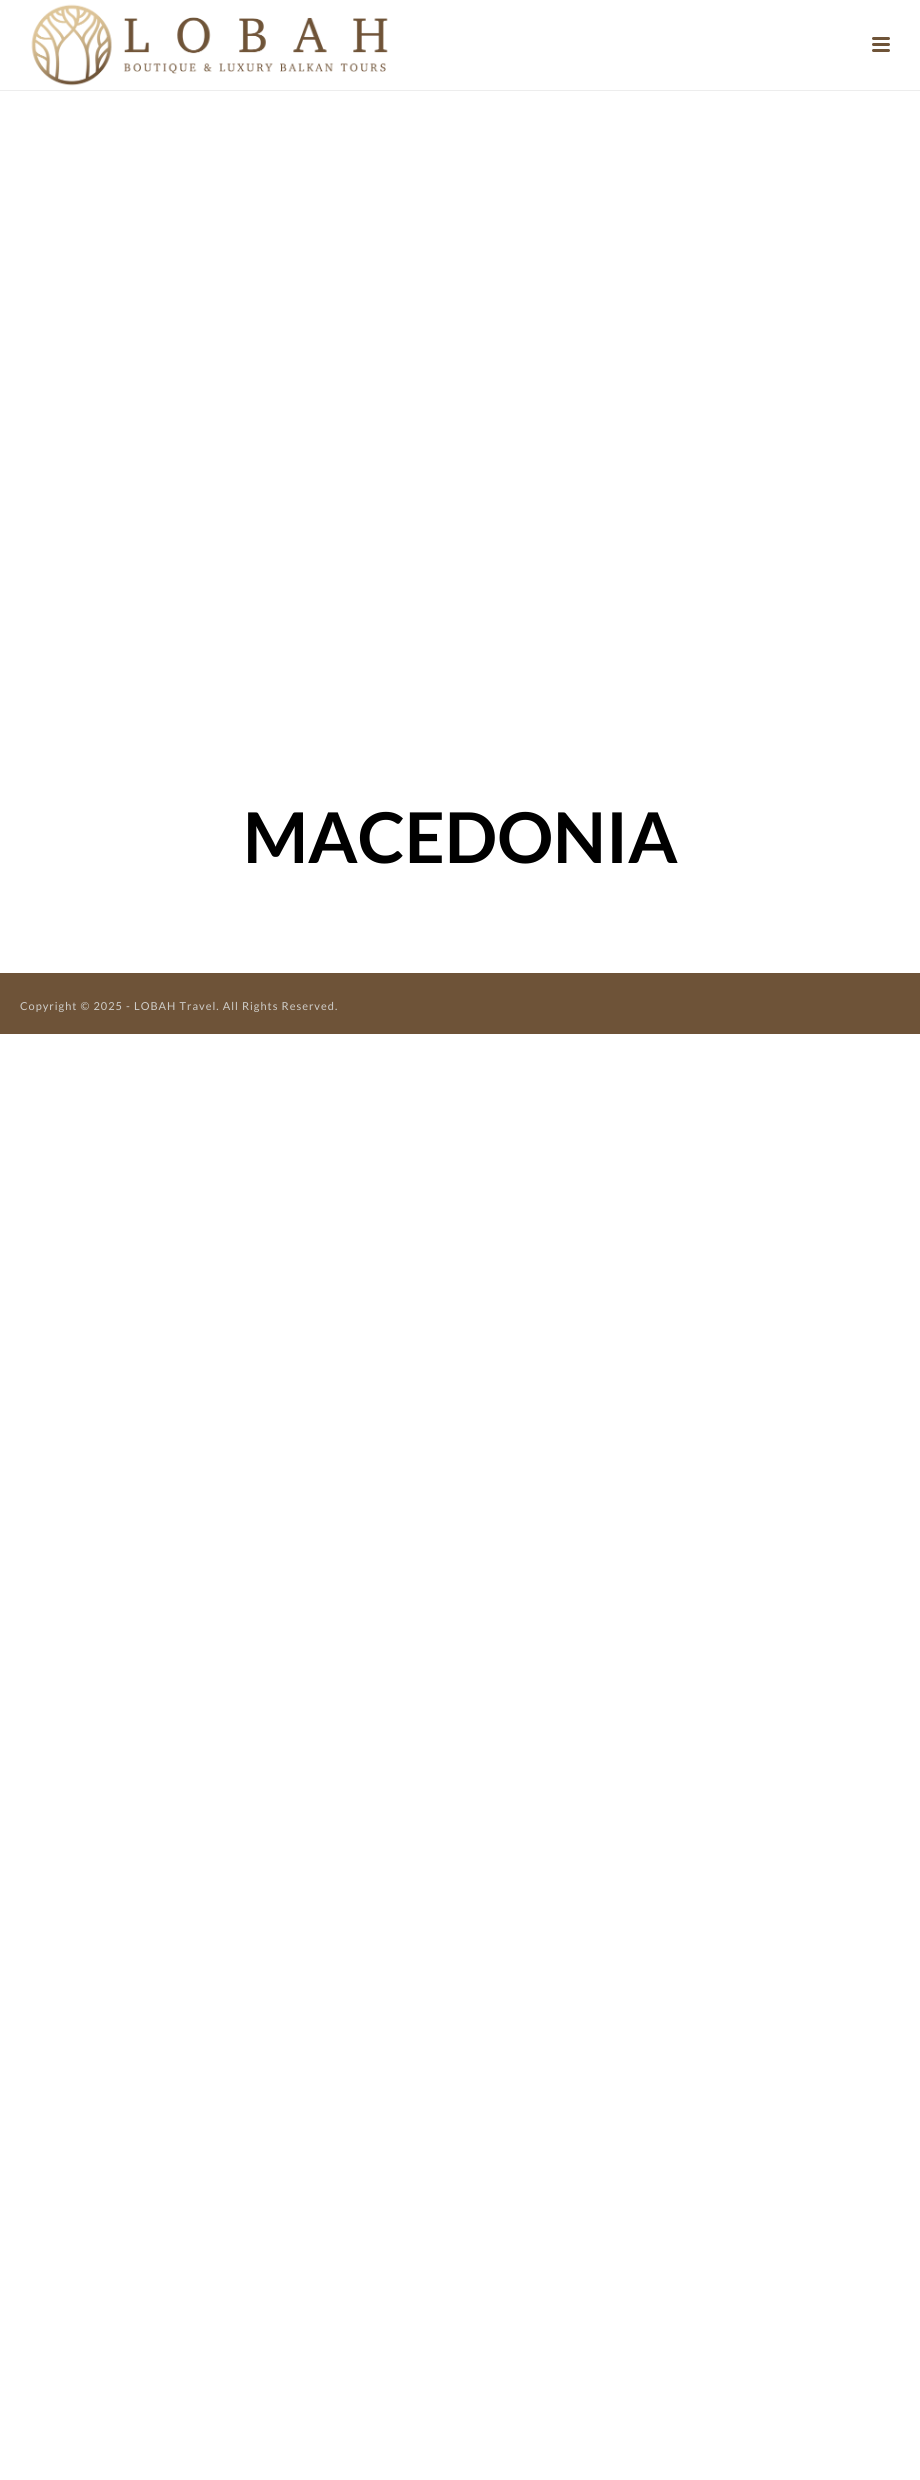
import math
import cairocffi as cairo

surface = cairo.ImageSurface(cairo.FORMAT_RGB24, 920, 2480)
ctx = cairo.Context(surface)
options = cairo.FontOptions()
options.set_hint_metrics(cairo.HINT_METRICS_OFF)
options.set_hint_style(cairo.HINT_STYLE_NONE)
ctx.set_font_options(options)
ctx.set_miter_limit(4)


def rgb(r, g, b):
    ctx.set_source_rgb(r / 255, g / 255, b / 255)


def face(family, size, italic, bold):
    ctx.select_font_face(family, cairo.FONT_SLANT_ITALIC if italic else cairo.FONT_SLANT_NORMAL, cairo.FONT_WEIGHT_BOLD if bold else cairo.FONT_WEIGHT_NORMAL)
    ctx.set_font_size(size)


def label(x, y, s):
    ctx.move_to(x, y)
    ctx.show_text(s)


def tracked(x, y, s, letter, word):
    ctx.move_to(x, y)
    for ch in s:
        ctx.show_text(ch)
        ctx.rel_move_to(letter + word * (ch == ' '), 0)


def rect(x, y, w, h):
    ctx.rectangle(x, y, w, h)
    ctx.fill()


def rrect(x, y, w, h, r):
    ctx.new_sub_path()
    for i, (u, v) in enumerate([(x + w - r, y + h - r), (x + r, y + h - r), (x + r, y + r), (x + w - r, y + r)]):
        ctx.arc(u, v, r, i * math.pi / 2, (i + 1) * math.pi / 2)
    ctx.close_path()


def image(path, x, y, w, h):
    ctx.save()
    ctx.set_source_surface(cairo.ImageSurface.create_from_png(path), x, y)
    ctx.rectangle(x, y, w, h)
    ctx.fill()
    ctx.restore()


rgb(255, 255, 255)
ctx.paint()
rgb(237, 237, 237)
rect(0, 90, 920, 1)
image('image0.png', 31, 4, 357, 82)
rgb(111, 84, 56)
rrect(872, 37, 18, 3, 1.5)
ctx.fill()
rrect(872, 43, 18, 3, 1.5)
ctx.fill()
rrect(872, 49, 18, 3, 1.5)
ctx.fill()
face('Lato', 70, 0, 1)
rgb(0, 0, 0)
label(243, 863, 'MACEDONIA')
rgb(110, 83, 56)
rect(0, 973, 920, 61)
face('Lato', 11, 0, 0)
rgb(206, 205, 201)
tracked(20, 1010, 'Copyright © 2025 - LOBAH Travel. All Rights Reserved.', 1, 0)
surface.write_to_png('render.png')
